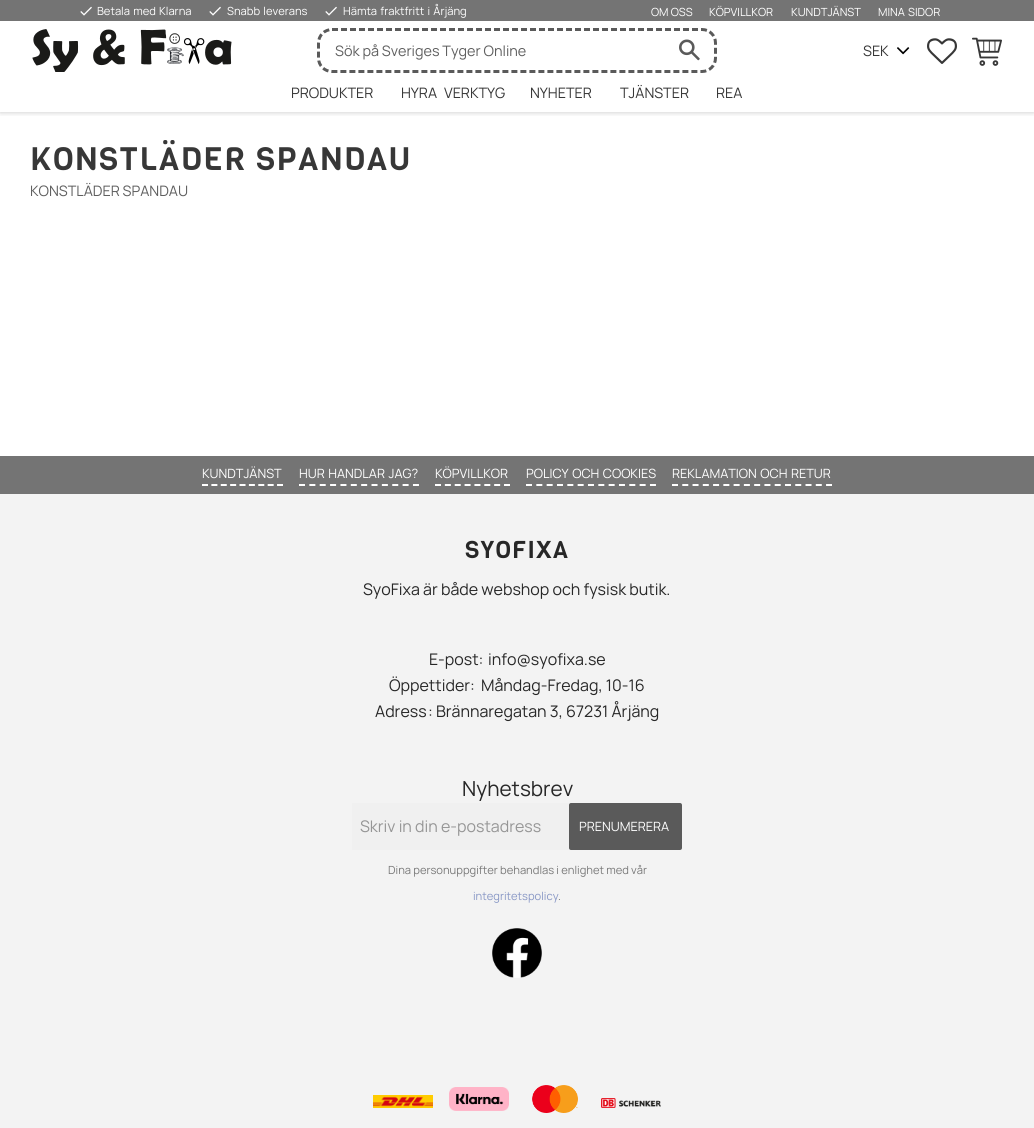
import math
import cairocffi as cairo

surface = cairo.ImageSurface(cairo.FORMAT_RGB24, 1034, 1128)
ctx = cairo.Context(surface)
options = cairo.FontOptions()
options.set_hint_metrics(cairo.HINT_METRICS_OFF)
options.set_hint_style(cairo.HINT_STYLE_NONE)
ctx.set_font_options(options)
ctx.set_miter_limit(4)


def rgb(r, g, b):
    ctx.set_source_rgb(r / 255, g / 255, b / 255)


def face(family, size, italic, bold):
    ctx.select_font_face(family, cairo.FONT_SLANT_ITALIC if italic else cairo.FONT_SLANT_NORMAL, cairo.FONT_WEIGHT_BOLD if bold else cairo.FONT_WEIGHT_NORMAL)
    ctx.set_font_size(size)


def label(x, y, s):
    ctx.move_to(x, y)
    ctx.show_text(s)


def tracked(x, y, s, letter, word):
    ctx.move_to(x, y)
    for ch in s:
        ctx.show_text(ch)
        ctx.rel_move_to(letter + word * (ch == ' '), 0)


def rect(x, y, w, h):
    ctx.rectangle(x, y, w, h)
    ctx.fill()


def rrect(x, y, w, h, r):
    ctx.new_sub_path()
    for i, (u, v) in enumerate([(x + w - r, y + h - r), (x + r, y + h - r), (x + r, y + r), (x + w - r, y + r)]):
        ctx.arc(u, v, r, i * math.pi / 2, (i + 1) * math.pi / 2)
    ctx.close_path()


def soft_shadow(x, y, w, h, r, blur, alpha):
    ctx.push_group_with_content(cairo.CONTENT_ALPHA)
    ctx.set_operator(cairo.OPERATOR_SOURCE)
    for i in range(15, -16, -2):
        e = blur * i / 6
        if min(w, h) + 2 * e > 0:
            ctx.set_source_rgba(0, 0, 0, alpha * math.erfc((i - 1) / 8.5) / 2)
            rrect(x - e, y - e, w + 2 * e, h + 2 * e, max(0, min(r + e + blur * .6, min(w, h) / 2 + e)))
            ctx.fill()
    ctx.mask(ctx.pop_group())


def image(path, x, y, w, h):
    ctx.save()
    ctx.set_source_surface(cairo.ImageSurface.create_from_png(path), x, y)
    ctx.rectangle(x, y, w, h)
    ctx.fill()
    ctx.restore()


rgb(255, 255, 255)
ctx.paint()
ctx.save()
ctx.rectangle(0, 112, 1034, 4)
ctx.clip()
rgb(39, 39, 39)
soft_shadow(0, 1, 1034, 112, 0, 2.5, 0.2)
ctx.restore()
rgb(116, 116, 116)
rect(0, 0, 1034, 21)
image('image0.png', 80, 6, 12, 10)
face('Manrope', 11.2, 0, 0)
rgb(255, 255, 255)
tracked(97, 15, 'Betala med Klarna', 0, 1)
image('image0.png', 209, 6, 12, 10)
tracked(227, 15, 'Snabb leverans', 0, 1)
image('image0.png', 325, 6, 12, 10)
tracked(343, 15, 'Hämta fraktfritt i Årjäng', 0, 1)
label(651, 16, 'OM OSS')
label(709, 16, 'KÖPVILLKOR')
label(791, 16, 'KUNDTJÄNST')
tracked(878, 16, 'MINA SIDOR', 0, 1)
image('image1.png', 32, 29, 200, 43)
ctx.new_path()
ctx.move_to(332, 29.5)
ctx.line_to(702, 29.5)
ctx.curve_to(709.5, 29.5, 715.5, 35.5, 715.5, 43)
ctx.line_to(715.5, 58)
ctx.curve_to(715.5, 65.5, 709.5, 71.5, 702, 71.5)
ctx.line_to(332, 71.5)
ctx.curve_to(324.5, 71.5, 318.5, 65.5, 318.5, 58)
ctx.line_to(318.5, 43)
ctx.curve_to(318.5, 35.5, 324.5, 29.5, 332, 29.5)
ctx.close_path()
rgb(90, 90, 90)
ctx.set_line_width(3)
ctx.set_dash([6, 3])
ctx.stroke()
face('Manrope', 14.4, 0, 0)
rgb(95, 95, 95)
label(335, 56, 'Sök på Sveriges Tyger Online')
image('image2.png', 679, 39, 21, 22)
rgb(55, 55, 55)
label(863, 56, 'SEK')
image('image3.png', 897, 47, 13, 8)
image('image4.png', 927, 38, 30, 26)
image('image5.png', 972, 37, 30, 29)
label(291, 98, 'PRODUKTER')
tracked(401, 98, 'HYRA VERKTYG', 0, 4)
label(530, 98, 'NYHETER')
label(620, 98, 'TJÄNSTER')
label(716, 98, 'REA')
face('Viga', 32, 0, 0)
tracked(30, 170, 'KONSTLÄDER SPANDAU', 1.6, 0)
face('Manrope', 14.4, 0, 0)
rgb(95, 95, 95)
label(30, 196, 'KONSTLÄDER SPANDAU')
rgb(243, 243, 243)
rect(0, 494, 1034, 634)
rgb(116, 116, 116)
rect(0, 456, 1034, 38)
ctx.new_path()
ctx.move_to(202, 485)
ctx.line_to(283, 485)
rgb(255, 255, 255)
ctx.set_line_width(2)
ctx.set_dash([6, 3.38])
ctx.stroke()
face('Manrope', 12.75, 0, 0)
label(202, 478, 'KUNDTJÄNST')
ctx.new_path()
ctx.move_to(299, 485)
ctx.line_to(419, 485)
ctx.set_dash([6, 4.36])
ctx.stroke()
tracked(299, 478, 'HUR HANDLAR JAG?', 0, 1)
ctx.new_path()
ctx.move_to(435, 485)
ctx.line_to(510, 485)
ctx.set_dash([6, 3.86])
ctx.stroke()
label(435, 478, 'KÖPVILLKOR')
ctx.new_path()
ctx.move_to(526, 485)
ctx.line_to(656, 485)
ctx.set_dash([6, 4.33])
ctx.stroke()
tracked(526, 478, 'POLICY OCH COOKIES', 0, 1)
ctx.new_path()
ctx.move_to(672, 485)
ctx.line_to(832, 485)
ctx.set_dash([6, 4.27])
ctx.stroke()
tracked(672, 478, 'REKLAMATION OCH RETUR', 0, 1)
face('Viga', 24, 0, 0)
rgb(39, 39, 39)
tracked(465, 558, 'SYOFIXA', 1.25, 0)
face('Manrope', 16, 0, 0)
label(363, 595, 'SyoFixa är både webshop och fysisk butik.')
label(429, 665, 'E-post:')
label(488, 665, 'info@syofixa.se')
label(389, 691, 'Öppettider:')
label(481, 691, 'Måndag-Fredag, 10-16')
label(375, 717, 'Adress')
label(428, 717, ': Brännaregatan 3, 67231 Årjäng')
face('Manrope', 20.75, 0, 0)
label(462, 796, 'Nyhetsbrev')
rgb(240, 240, 240)
rect(352, 803, 217, 47)
face('Manrope', 16, 0, 0)
rgb(150, 150, 150)
label(360, 832, 'Skriv in din e-postadress')
rgb(90, 90, 90)
rrect(569, 803, 113, 47, 2)
ctx.fill()
face('Manrope', 12.75, 0, 0)
rgb(255, 255, 255)
label(579, 831, 'PRENUMERERA')
face('Manrope', 11.2, 0, 0)
rgb(121, 121, 121)
label(388, 874, 'Dina personuppgifter behandlas i enlighet med vår')
rgb(136, 151, 197)
label(473, 900, 'integritetspolicy')
rgb(121, 121, 121)
label(558, 900, '.')
image('image6.png', 492, 928, 50, 50)
image('image7.png', 373, 1095, 60, 13)
image('image8.png', 449, 1087, 60, 24)
image('image9.png', 532, 1085, 46, 28)
image('image10.png', 601, 1098, 60, 10)
surface.write_to_png('render.png')
